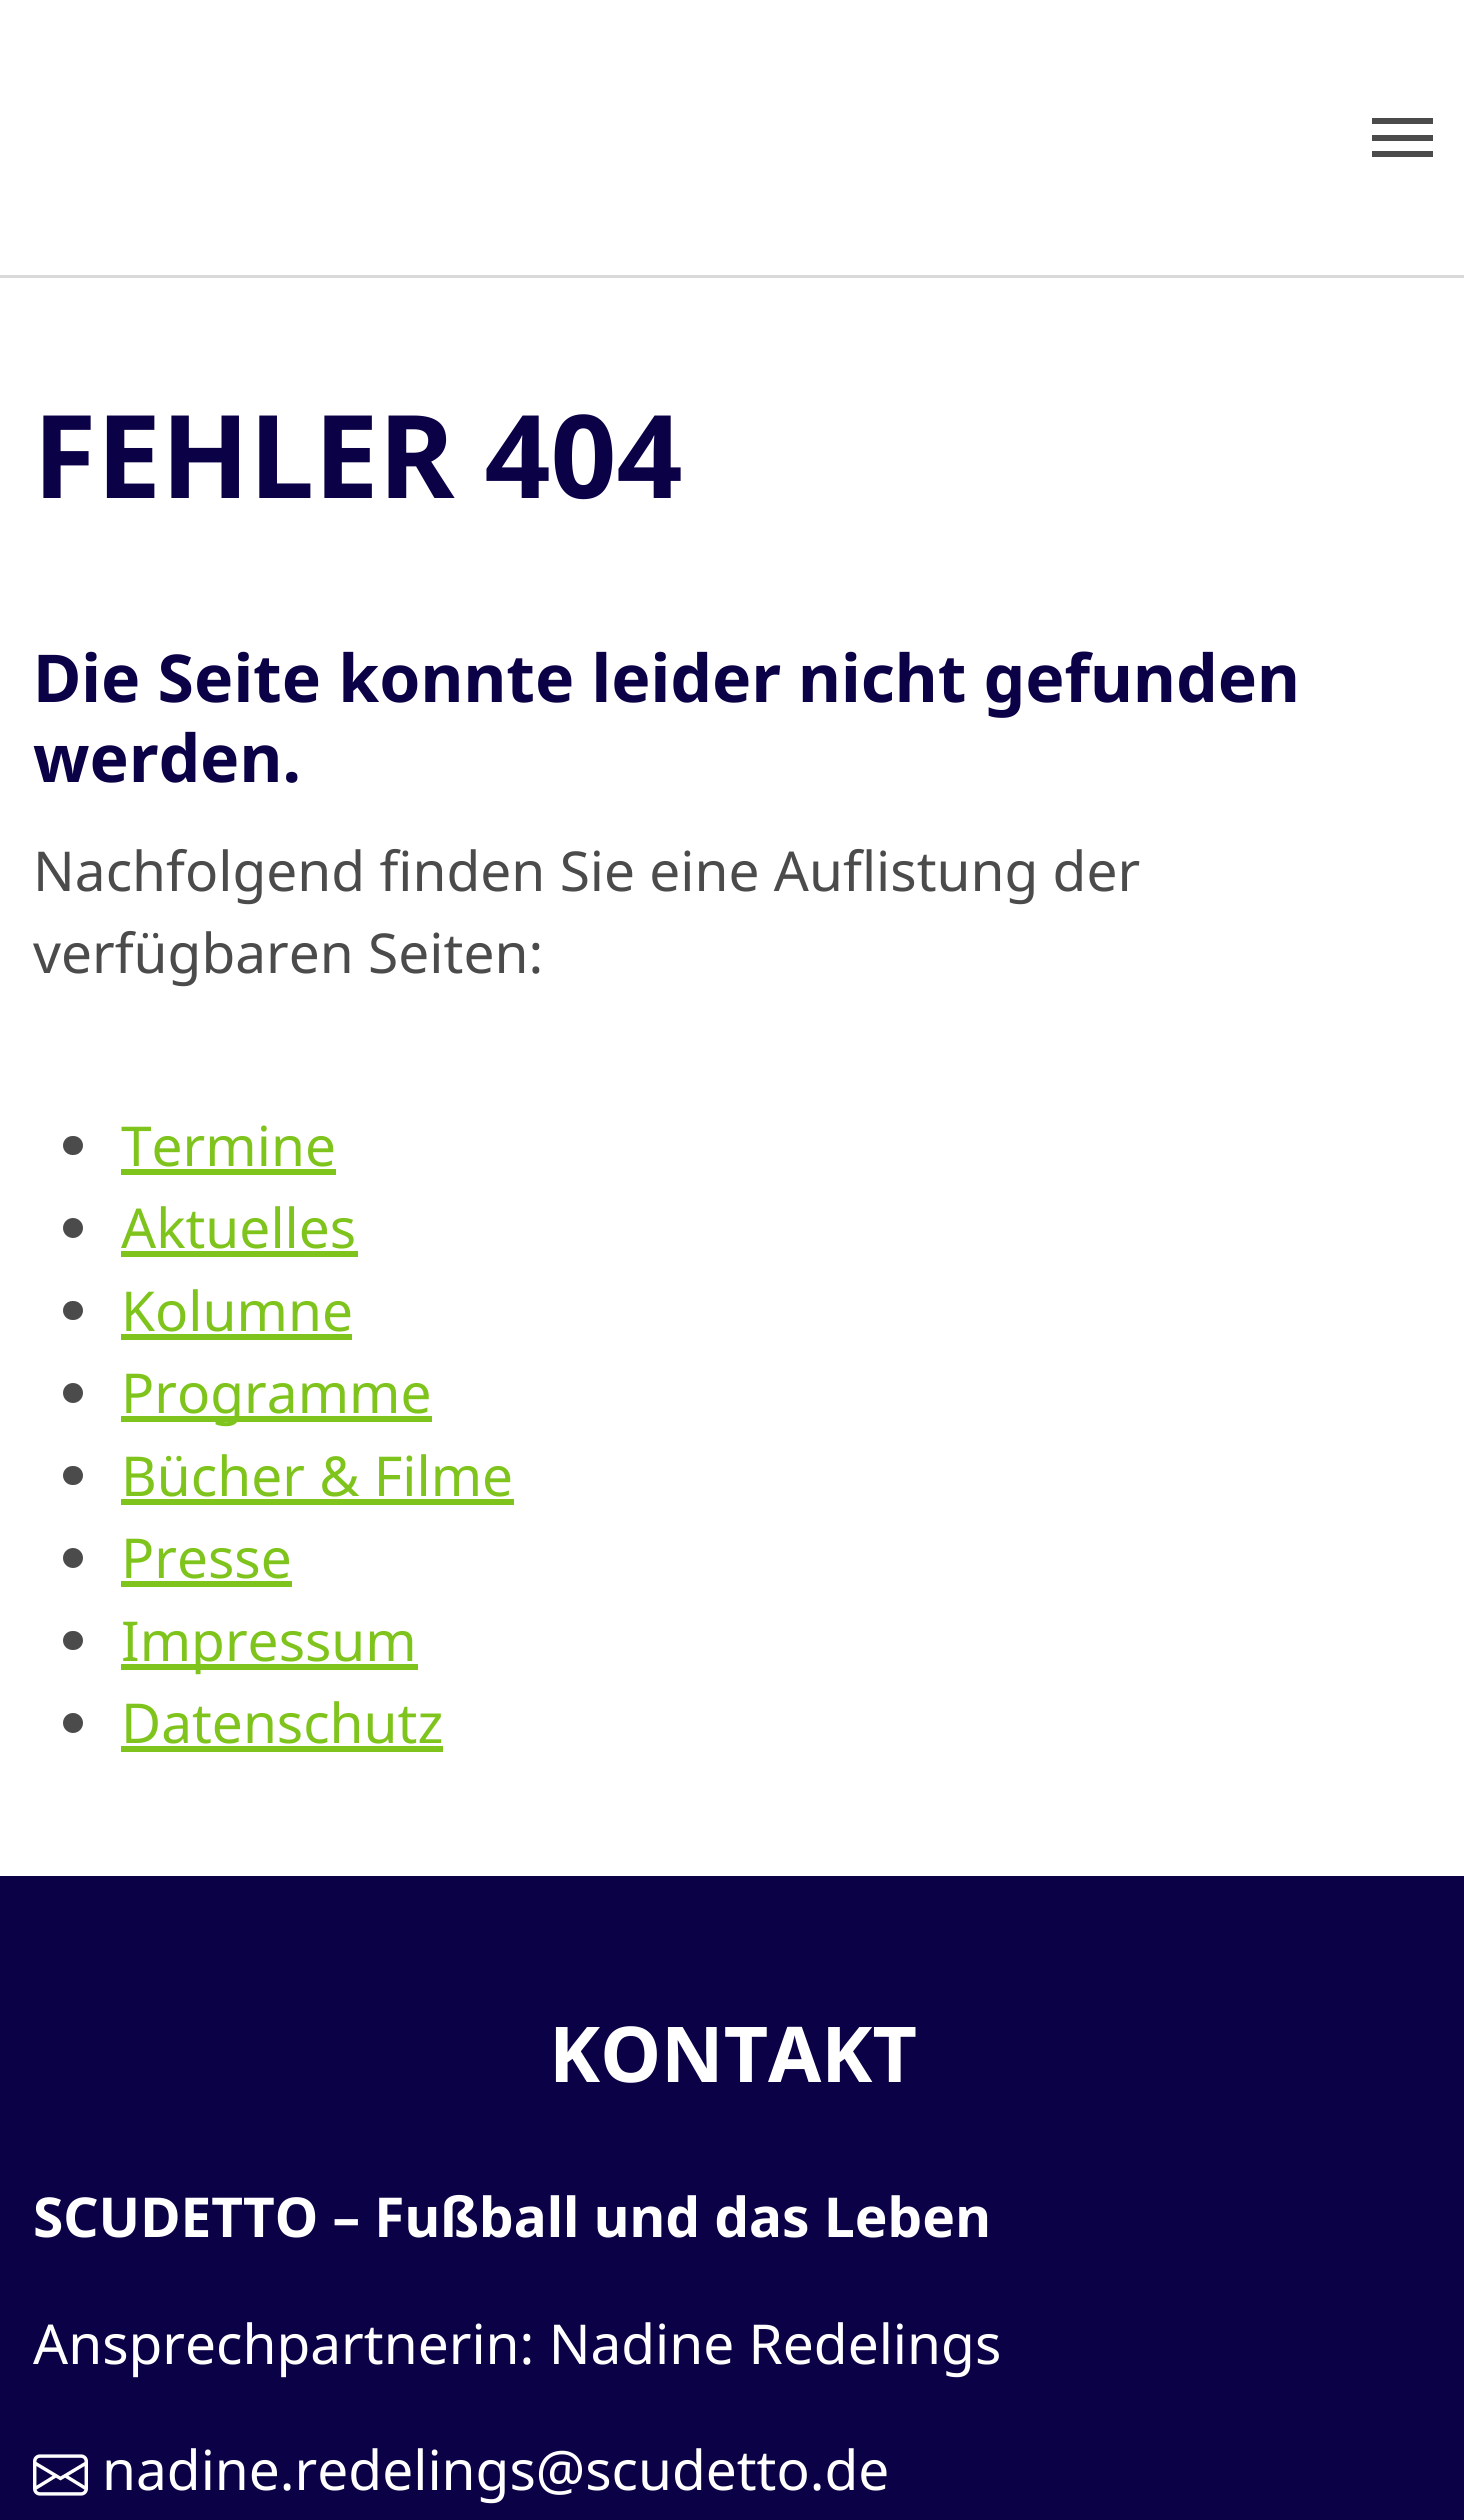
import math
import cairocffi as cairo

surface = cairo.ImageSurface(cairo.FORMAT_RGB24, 1464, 2520)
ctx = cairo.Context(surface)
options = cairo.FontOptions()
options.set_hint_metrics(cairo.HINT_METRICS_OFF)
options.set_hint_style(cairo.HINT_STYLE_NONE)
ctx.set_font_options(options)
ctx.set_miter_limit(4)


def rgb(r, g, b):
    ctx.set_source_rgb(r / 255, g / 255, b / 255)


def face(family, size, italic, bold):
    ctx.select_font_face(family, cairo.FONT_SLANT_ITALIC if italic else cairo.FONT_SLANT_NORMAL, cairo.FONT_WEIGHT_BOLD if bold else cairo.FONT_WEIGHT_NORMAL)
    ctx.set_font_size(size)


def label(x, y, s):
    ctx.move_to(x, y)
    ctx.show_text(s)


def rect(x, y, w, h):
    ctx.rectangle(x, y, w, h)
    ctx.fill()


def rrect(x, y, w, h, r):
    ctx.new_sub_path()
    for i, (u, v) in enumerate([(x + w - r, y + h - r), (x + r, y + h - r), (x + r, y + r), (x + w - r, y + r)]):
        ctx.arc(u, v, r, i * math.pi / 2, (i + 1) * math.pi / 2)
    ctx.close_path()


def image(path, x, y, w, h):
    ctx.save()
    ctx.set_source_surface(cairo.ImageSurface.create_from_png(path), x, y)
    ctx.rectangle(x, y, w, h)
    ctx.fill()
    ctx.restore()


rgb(255, 255, 255)
ctx.paint()
rgb(217, 217, 217)
ctx.new_path()
ctx.move_to(0, 275)
ctx.line_to(0, 278)
ctx.line_to(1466, 278)
ctx.line_to(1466, 3)
ctx.line_to(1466, 275)
ctx.close_path()
ctx.fill()
rgb(75, 75, 75)
rect(1372, 135, 61, 6)
rect(1372, 118, 61, 6)
rect(1372, 151, 61, 6)
face('Noto Sans', 115.5, 0, 1)
rgb(11, 1, 70)
label(33, 498, 'FEHLER 404')
face('Noto Sans', 66, 0, 1)
label(33, 702, 'Die Seite konnte leider nicht gefunden')
label(33, 782, 'werden.')
face('Noto Sans', 55, 0, 0)
rgb(75, 75, 75)
label(33, 891, 'Nachfolgend finden Sie eine Auflistung der')
label(33, 973, 'verfügbaren Seiten:')
rrect(63, 1136, 20, 19, 9.5)
ctx.fill()
rgb(127, 196, 28)
label(121, 1166, 'Termine')
rect(121, 1169, 215, 6)
rgb(75, 75, 75)
ctx.new_path()
ctx.arc(73, 1228, 10, 0, 2 * math.pi)
ctx.fill()
rgb(127, 196, 28)
label(121, 1248, 'Aktuelles')
rect(121, 1251, 237, 6)
rgb(75, 75, 75)
rrect(63, 1301, 20, 19, 9.5)
ctx.fill()
rgb(127, 196, 28)
label(121, 1331, 'Kolumne')
rect(121, 1334, 231, 6)
rgb(75, 75, 75)
ctx.new_path()
ctx.arc(73, 1393, 10, 0, 2 * math.pi)
ctx.fill()
rgb(127, 196, 28)
rect(121, 1416, 311, 6)
label(121, 1413, 'Programme')
rgb(75, 75, 75)
rrect(63, 1466, 20, 19, 9.5)
ctx.fill()
rgb(127, 196, 28)
label(121, 1496, 'Bücher & Filme')
rect(121, 1499, 393, 6)
rgb(75, 75, 75)
ctx.new_path()
ctx.arc(73, 1558, 10, 0, 2 * math.pi)
ctx.fill()
rgb(127, 196, 28)
label(121, 1578, 'Presse')
rect(121, 1581, 171, 6)
rgb(75, 75, 75)
rrect(63, 1631, 20, 19, 9.5)
ctx.fill()
rgb(127, 196, 28)
rect(121, 1664, 297, 6)
label(121, 1661, 'Impressum')
rgb(75, 75, 75)
ctx.new_path()
ctx.arc(73, 1723, 10, 0, 2 * math.pi)
ctx.fill()
rgb(127, 196, 28)
label(121, 1743, 'Datenschutz')
rect(121, 1746, 322, 6)
rgb(11, 1, 70)
rect(0, 1876, 1464, 644)
face('Noto Sans', 77, 0, 1)
rgb(255, 255, 255)
label(549, 2082, 'KONTAKT')
face('Noto Sans', 55, 0, 1)
label(33, 2237, 'SCUDETTO – Fußball und das Leben')
face('Noto Sans', 55, 0, 0)
label(33, 2364, 'Ansprechpartnerin: Nadine Redelings')
image('image0.png', 33, 2454, 55, 42)
label(102, 2490, 'nadine.redelings@scudetto.de')
surface.write_to_png('render.png')
